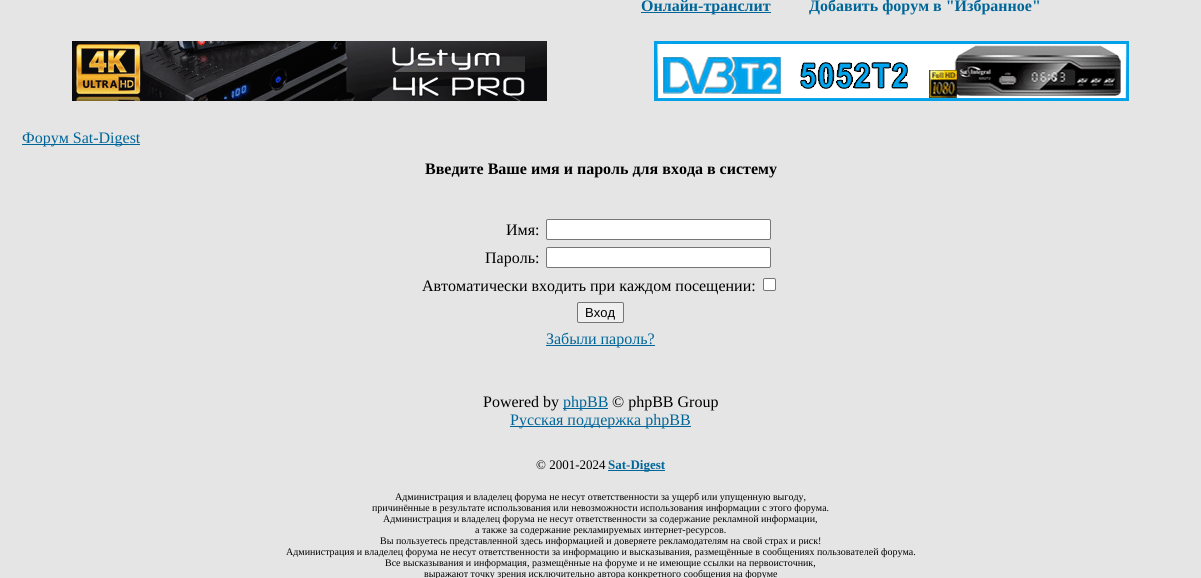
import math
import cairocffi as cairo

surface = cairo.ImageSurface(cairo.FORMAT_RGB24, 1201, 578)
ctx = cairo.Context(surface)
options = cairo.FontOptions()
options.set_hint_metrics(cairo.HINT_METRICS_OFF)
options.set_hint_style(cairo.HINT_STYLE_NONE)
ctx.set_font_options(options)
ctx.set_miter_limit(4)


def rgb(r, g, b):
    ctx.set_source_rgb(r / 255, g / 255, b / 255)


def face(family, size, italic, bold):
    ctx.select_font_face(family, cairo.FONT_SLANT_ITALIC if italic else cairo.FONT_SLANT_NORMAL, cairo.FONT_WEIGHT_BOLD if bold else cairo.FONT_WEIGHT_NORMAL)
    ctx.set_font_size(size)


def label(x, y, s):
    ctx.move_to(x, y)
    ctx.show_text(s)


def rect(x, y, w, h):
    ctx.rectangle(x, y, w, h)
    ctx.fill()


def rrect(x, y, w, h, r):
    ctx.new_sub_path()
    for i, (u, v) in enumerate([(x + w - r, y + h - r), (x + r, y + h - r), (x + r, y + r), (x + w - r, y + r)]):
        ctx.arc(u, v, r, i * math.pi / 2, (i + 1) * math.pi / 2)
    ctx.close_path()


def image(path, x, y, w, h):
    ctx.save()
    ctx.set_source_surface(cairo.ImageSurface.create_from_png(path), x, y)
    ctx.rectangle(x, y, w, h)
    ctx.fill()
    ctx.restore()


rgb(229, 229, 229)
ctx.paint()
rgb(0, 102, 153)
rect(641, 12, 130, 1)
face('Liberation Serif', 16, 0, 1)
label(641, 11, 'Онлайн-транслит')
label(809, 11, 'Добавить форум в "Избранное"')
image('image0.png', 72, 41, 475, 60)
image('image1.png', 654, 41, 475, 60)
rect(22, 144, 118, 1)
face('Liberation Serif', 16, 0, 0)
label(22, 143, 'Форум Sat-Digest')
face('Liberation Serif', 16, 0, 1)
rgb(0, 0, 0)
label(425, 174, 'Введите Ваше имя и пароль для входа в систему')
face('Liberation Serif', 16, 0, 0)
label(506, 235, 'Имя:')
rgb(255, 255, 255)
rrect(546.5, 219.5, 224, 20, 1.5)
ctx.fill_preserve()
rgb(118, 118, 118)
ctx.set_line_width(1)
ctx.stroke()
rgb(0, 0, 0)
label(485, 263, 'Пароль:')
rgb(255, 255, 255)
rrect(546.5, 247.5, 224, 20, 1.5)
ctx.fill_preserve()
rgb(118, 118, 118)
ctx.stroke()
rgb(0, 0, 0)
label(422, 291, 'Автоматически входить при каждом посещении:')
rgb(255, 255, 255)
rrect(763.5, 278.5, 12, 12, 1.5)
ctx.fill_preserve()
rgb(118, 118, 118)
ctx.stroke()
rgb(239, 239, 239)
rrect(577.5, 302.5, 46, 20, 1.5)
ctx.fill_preserve()
rgb(118, 118, 118)
ctx.stroke()
face('Liberation Sans', 13, 0, 0)
rgb(0, 0, 0)
label(585, 317, 'Вход')
rgb(0, 102, 153)
rect(546, 345, 109, 1)
face('Liberation Serif', 16, 0, 0)
label(546, 344, 'Забыли пароль?')
rgb(0, 0, 0)
label(483, 407, 'Powered by')
rgb(0, 102, 153)
rect(563, 408, 45, 1)
label(563, 407, 'phpBB')
rgb(0, 0, 0)
label(612, 407, '© phpBB Group')
rgb(0, 102, 153)
rect(510, 426, 181, 1)
label(510, 425, 'Русская поддержка phpBB')
face('Liberation Serif', 13, 0, 0)
rgb(0, 0, 0)
label(536, 469, '© 2001-2024')
rgb(0, 102, 153)
rect(608, 470, 57, 1)
face('Liberation Serif', 13, 0, 1)
label(608, 469, 'Sat-Digest')
face('Liberation Serif', 10, 0, 0)
rgb(0, 0, 0)
label(395, 500, 'Администрация и владелец форума не несут ответственности за ущерб или упущенную выгоду,')
label(372, 511, 'причинённые в результате использования или невозможности использования информации с этого форума.')
label(383, 522, 'Администрация и владелец форума не несут ответственности за содержание рекламной информации,')
label(475, 533, 'а также за содержание рекламируемых интернет-ресурсов.')
label(380, 544, 'Вы пользуетесь представленной здесь информацией и доверяете рекламодателям на свой страх и риск!')
label(286, 555, 'Администрация и владелец форума не несут ответственности за информацию и высказывания, размещённые в сообщениях пользователей форума.')
label(385, 566, 'Все высказывания и информация, размещённые на форуме и не имеющие ссылки на первоисточник,')
label(424, 577, 'выражают точку зрения исключительно автора конкретного сообщения на форуме')
surface.write_to_png('render.png')
